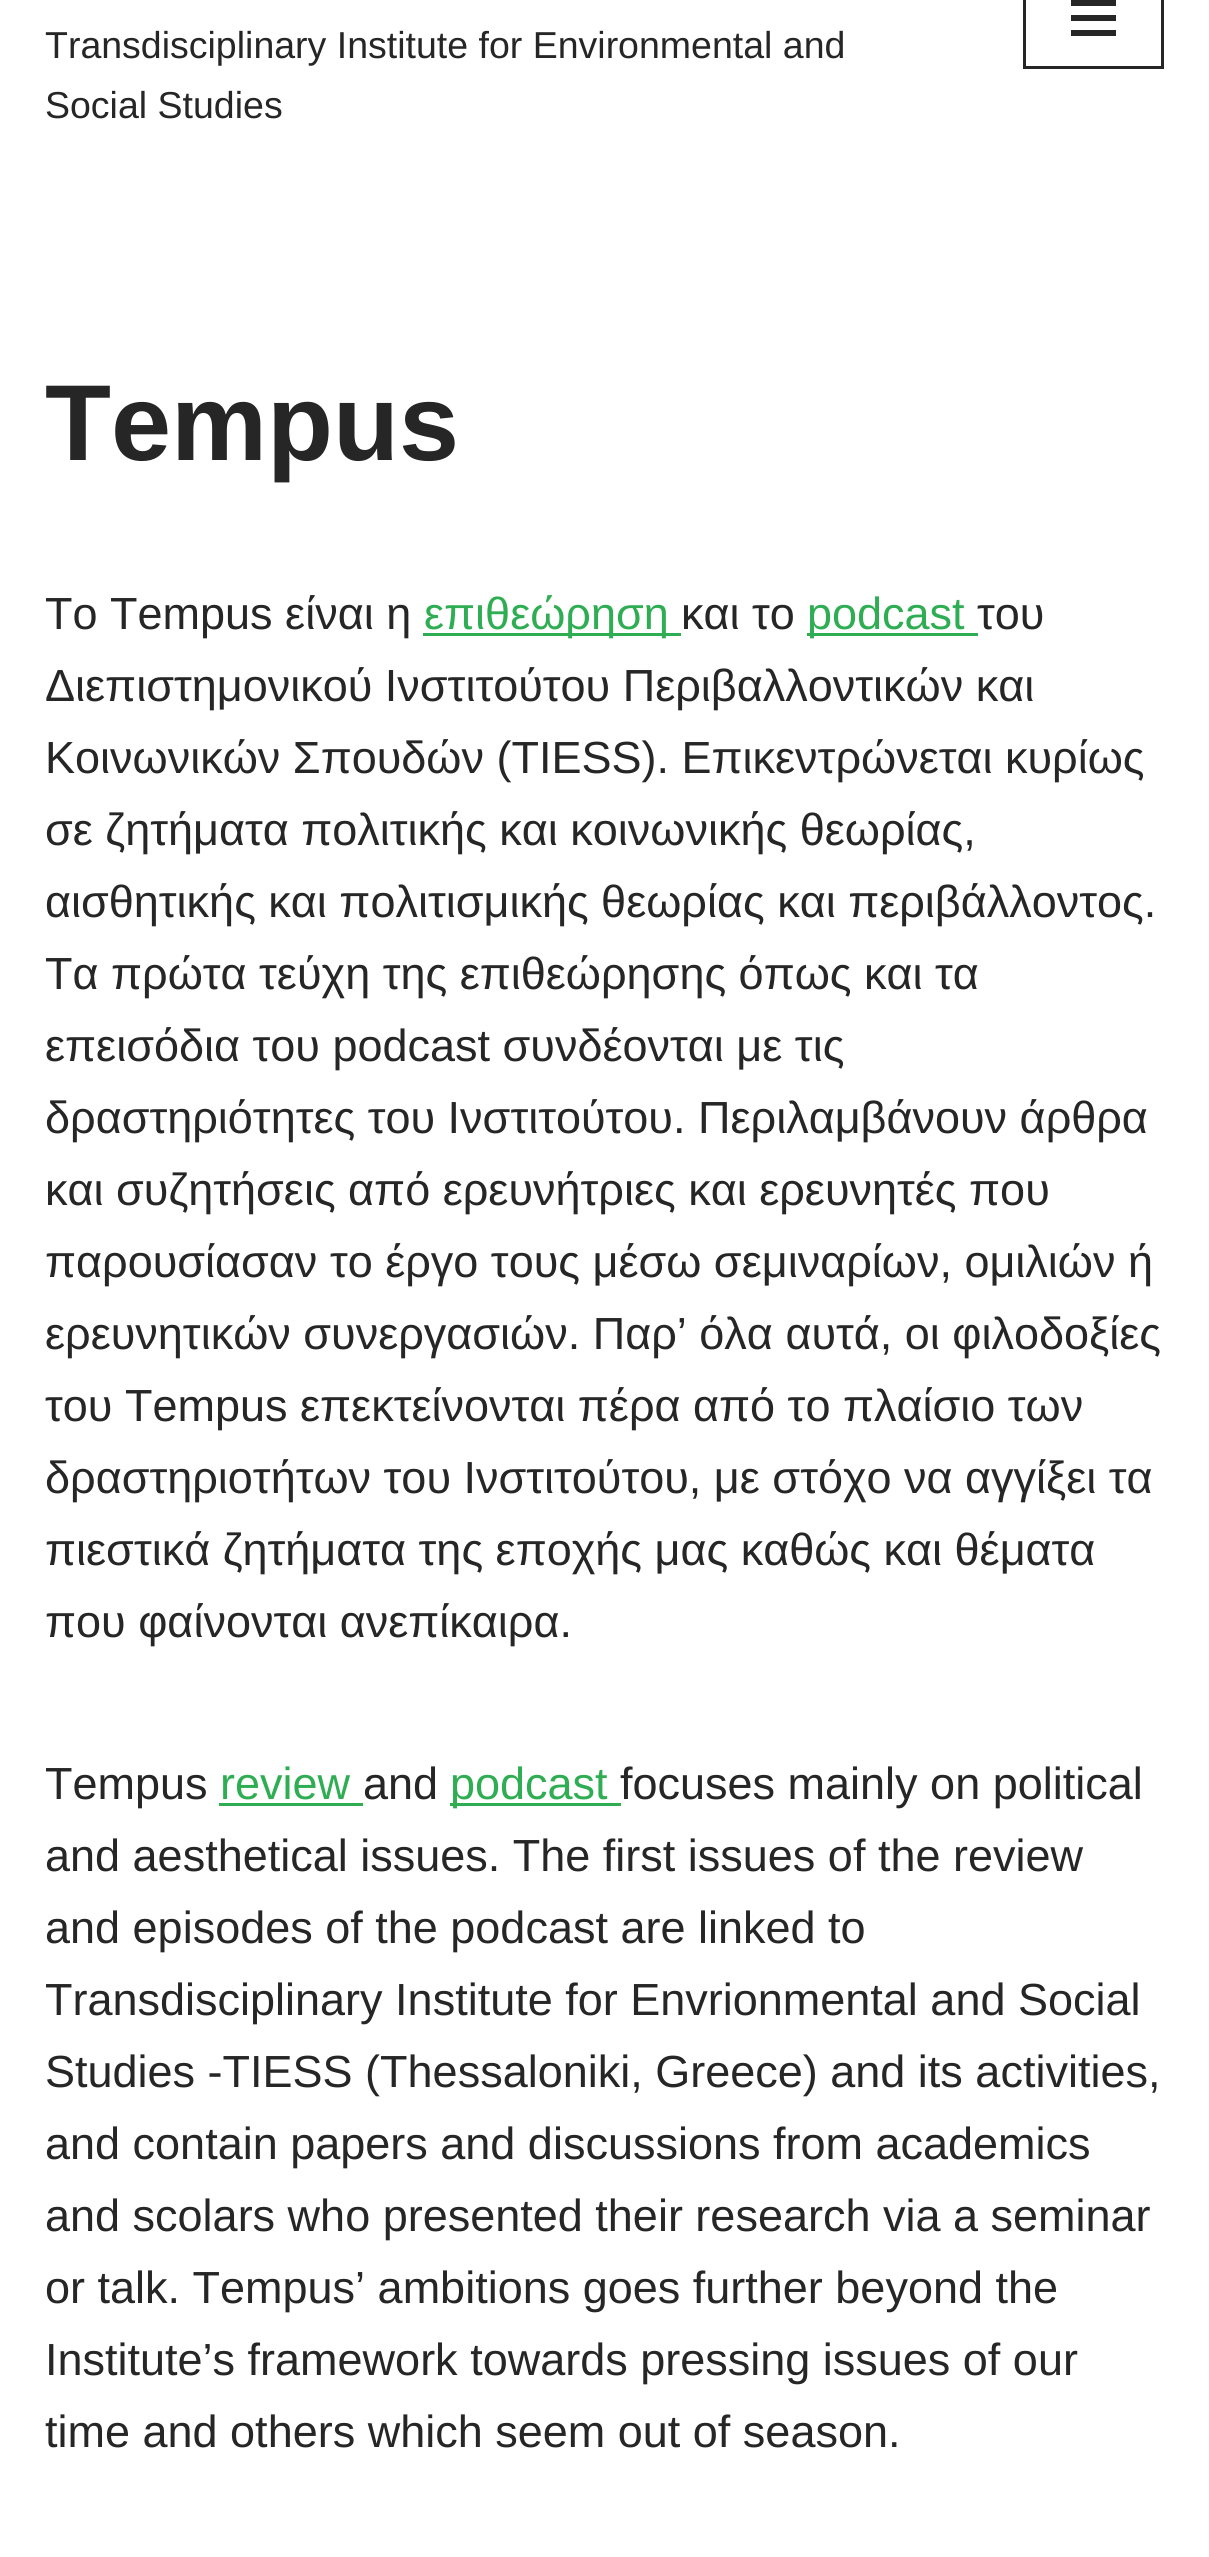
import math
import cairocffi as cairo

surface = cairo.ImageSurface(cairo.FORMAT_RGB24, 1209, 2557)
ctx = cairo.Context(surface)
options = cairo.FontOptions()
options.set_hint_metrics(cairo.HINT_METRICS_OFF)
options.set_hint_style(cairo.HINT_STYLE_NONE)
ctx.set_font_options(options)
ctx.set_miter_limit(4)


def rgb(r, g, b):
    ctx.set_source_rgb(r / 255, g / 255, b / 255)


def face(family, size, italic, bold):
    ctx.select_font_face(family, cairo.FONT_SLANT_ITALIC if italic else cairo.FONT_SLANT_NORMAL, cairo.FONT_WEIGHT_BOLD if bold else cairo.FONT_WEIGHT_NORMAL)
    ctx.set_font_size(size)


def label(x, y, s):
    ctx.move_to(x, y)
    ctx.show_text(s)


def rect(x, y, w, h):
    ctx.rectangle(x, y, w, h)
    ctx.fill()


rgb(255, 255, 255)
ctx.paint()
face('Liberation Sans', 37.5, 0, 0)
rgb(39, 38, 38)
label(45, 58, 'Transdisciplinary Institute for Environmental and')
label(45, 118, 'Social Studies')
ctx.rectangle(1024.5, -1.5, 138, 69)
ctx.set_line_width(3)
ctx.stroke()
rect(1071, 0, 45, 6)
rect(1071, 15, 45, 6)
rect(1071, 30, 45, 6)
face('Liberation Sans', 108, 0, 1)
label(45, 460, 'Tempus')
face('Liberation Sans', 45, 0, 0)
label(45, 629, 'Το Tempus είναι η')
rgb(47, 173, 83)
rect(423, 633, 258, 3)
label(424, 629, 'επιθεώρηση')
rgb(39, 38, 38)
label(681, 629, 'και το')
rgb(47, 173, 83)
rect(807, 633, 171, 3)
label(807, 629, 'podcast')
rgb(39, 38, 38)
label(977, 629, 'του')
label(45, 701, 'Διεπιστημονικού Ινστιτούτου Περιβαλλοντικών και')
label(45, 773, 'Κοινωνικών Σπουδών (TIESS). Επικεντρώνεται κυρίως')
label(45, 845, 'σε ζητήματα πολιτικής και κοινωνικής θεωρίας,')
label(45, 917, 'αισθητικής και πολιτισμικής θεωρίας και περιβάλλοντος.')
label(45, 989, 'Τα πρώτα τεύχη της επιθεώρησης όπως και τα')
label(45, 1061, 'επεισόδια του podcast συνδέονται με τις')
label(45, 1133, 'δραστηριότητες του Ινστιτούτου. Περιλαμβάνουν άρθρα')
label(45, 1205, 'και συζητήσεις από ερευνήτριες και ερευνητές που')
label(45, 1277, 'παρουσίασαν το έργο τους μέσω σεμιναρίων, ομιλιών ή')
label(45, 1349, 'ερευνητικών συνεργασιών. Παρ’ όλα αυτά, οι φιλοδοξίες')
label(45, 1421, 'του Tempus επεκτείνονται πέρα από το πλαίσιο των')
label(45, 1493, 'δραστηριοτήτων του Ινστιτούτου, με στόχο να αγγίξει τα')
label(45, 1565, 'πιεστικά ζητήματα της εποχής μας καθώς και θέματα')
label(45, 1637, 'που φαίνονται ανεπίκαιρα.')
label(45, 1799, 'Tempus')
rgb(47, 173, 83)
label(220, 1799, 'review')
rect(219, 1803, 144, 3)
rgb(39, 38, 38)
label(363, 1799, 'and')
rgb(47, 173, 83)
rect(450, 1803, 171, 3)
label(450, 1799, 'podcast')
rgb(39, 38, 38)
label(620, 1799, 'focuses mainly on political')
label(45, 1871, 'and aesthetical issues. The first issues of the review')
label(45, 1943, 'and episodes of the podcast are linked to')
label(45, 2015, 'Transdisciplinary Institute for Envrionmental and Social')
label(45, 2087, 'Studies -TIESS (Thessaloniki, Greece) and its activities,')
label(45, 2159, 'and contain papers and discussions from academics')
label(45, 2231, 'and scolars who presented their research via a seminar')
label(45, 2303, 'or talk. Tempus’ ambitions goes further beyond the')
label(45, 2375, 'Institute’s framework towards pressing issues of our')
label(45, 2447, 'time and others which seem out of season.')
surface.write_to_png('render.png')
